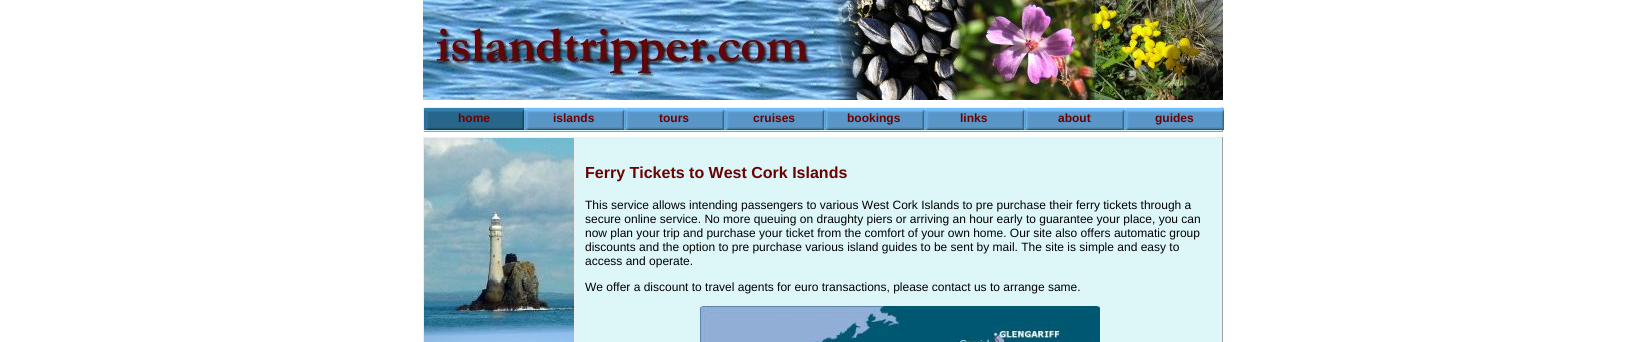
import math
import cairocffi as cairo

surface = cairo.ImageSurface(cairo.FORMAT_RGB24, 1646, 342)
ctx = cairo.Context(surface)
options = cairo.FontOptions()
options.set_hint_metrics(cairo.HINT_METRICS_OFF)
options.set_hint_style(cairo.HINT_STYLE_NONE)
ctx.set_font_options(options)
ctx.set_miter_limit(4)


def rgb(r, g, b):
    ctx.set_source_rgb(r / 255, g / 255, b / 255)


def face(family, size, italic, bold):
    ctx.select_font_face(family, cairo.FONT_SLANT_ITALIC if italic else cairo.FONT_SLANT_NORMAL, cairo.FONT_WEIGHT_BOLD if bold else cairo.FONT_WEIGHT_NORMAL)
    ctx.set_font_size(size)


def label(x, y, s):
    ctx.move_to(x, y)
    ctx.show_text(s)


def rect(x, y, w, h):
    ctx.rectangle(x, y, w, h)
    ctx.fill()


def image(path, x, y, w, h):
    ctx.save()
    ctx.set_source_surface(cairo.ImageSurface.create_from_png(path), x, y)
    ctx.rectangle(x, y, w, h)
    ctx.fill()
    ctx.restore()


rgb(255, 255, 255)
ctx.paint()
image('image0.png', 423, 0, 800, 100)
rgb(221, 246, 248)
rect(424, 130, 798, 1)
rgb(238, 238, 238)
rect(423, 107, 800, 1)
rgb(159, 159, 159)
rect(1222, 107, 1, 25)
rect(423, 131, 800, 1)
rgb(238, 238, 238)
rect(423, 107, 1, 25)
image('image1.png', 424, 108, 100, 22)
face('Liberation Sans', 12, 0, 1)
rgb(106, 2, 2)
label(458, 122, 'home')
image('image2.png', 524, 108, 100, 22)
label(553, 122, 'islands')
image('image2.png', 624, 108, 100, 22)
label(659, 122, 'tours')
image('image2.png', 724, 108, 100, 22)
label(753, 122, 'cruises')
image('image2.png', 824, 108, 100, 22)
label(847, 122, 'bookings')
image('image2.png', 924, 108, 100, 22)
label(960, 122, 'links')
image('image2.png', 1024, 108, 100, 22)
label(1058, 122, 'about')
image('image2.png', 1124, 108, 100, 22)
label(1155, 122, 'guides')
rgb(221, 246, 248)
rect(575, 138, 647, 204)
rgb(238, 238, 238)
rect(423, 137, 800, 1)
rgb(159, 159, 159)
rect(1222, 137, 1, 205)
rgb(238, 238, 238)
rect(423, 137, 1, 205)
image('image3.png', 424, 138, 150, 204)
rect(574, 138, 1, 204)
face('Liberation Sans', 16, 0, 1)
rgb(106, 2, 2)
label(585, 178, 'Ferry Tickets to West Cork Islands')
face('Liberation Sans', 12, 0, 0)
rgb(0, 0, 0)
label(585, 209, 'This service allows intending passengers to various West Cork Islands to pre purchase their ferry tickets through a')
label(585, 223, 'secure online service. No more queuing on draughty piers or arriving an hour early to guarantee your place, you can')
label(585, 237, 'now plan your trip and purchase your ticket from the comfort of your own home. Our site also offers automatic group')
label(585, 251, 'discounts and the option to pre purchase various island guides to be sent by mail. The site is simple and easy to')
label(585, 265, 'access and operate.')
label(585, 291, 'We offer a discount to travel agents for euro transactions, please contact us to arrange same.')
image('image4.png', 700, 306, 400, 36)
surface.write_to_png('render.png')
